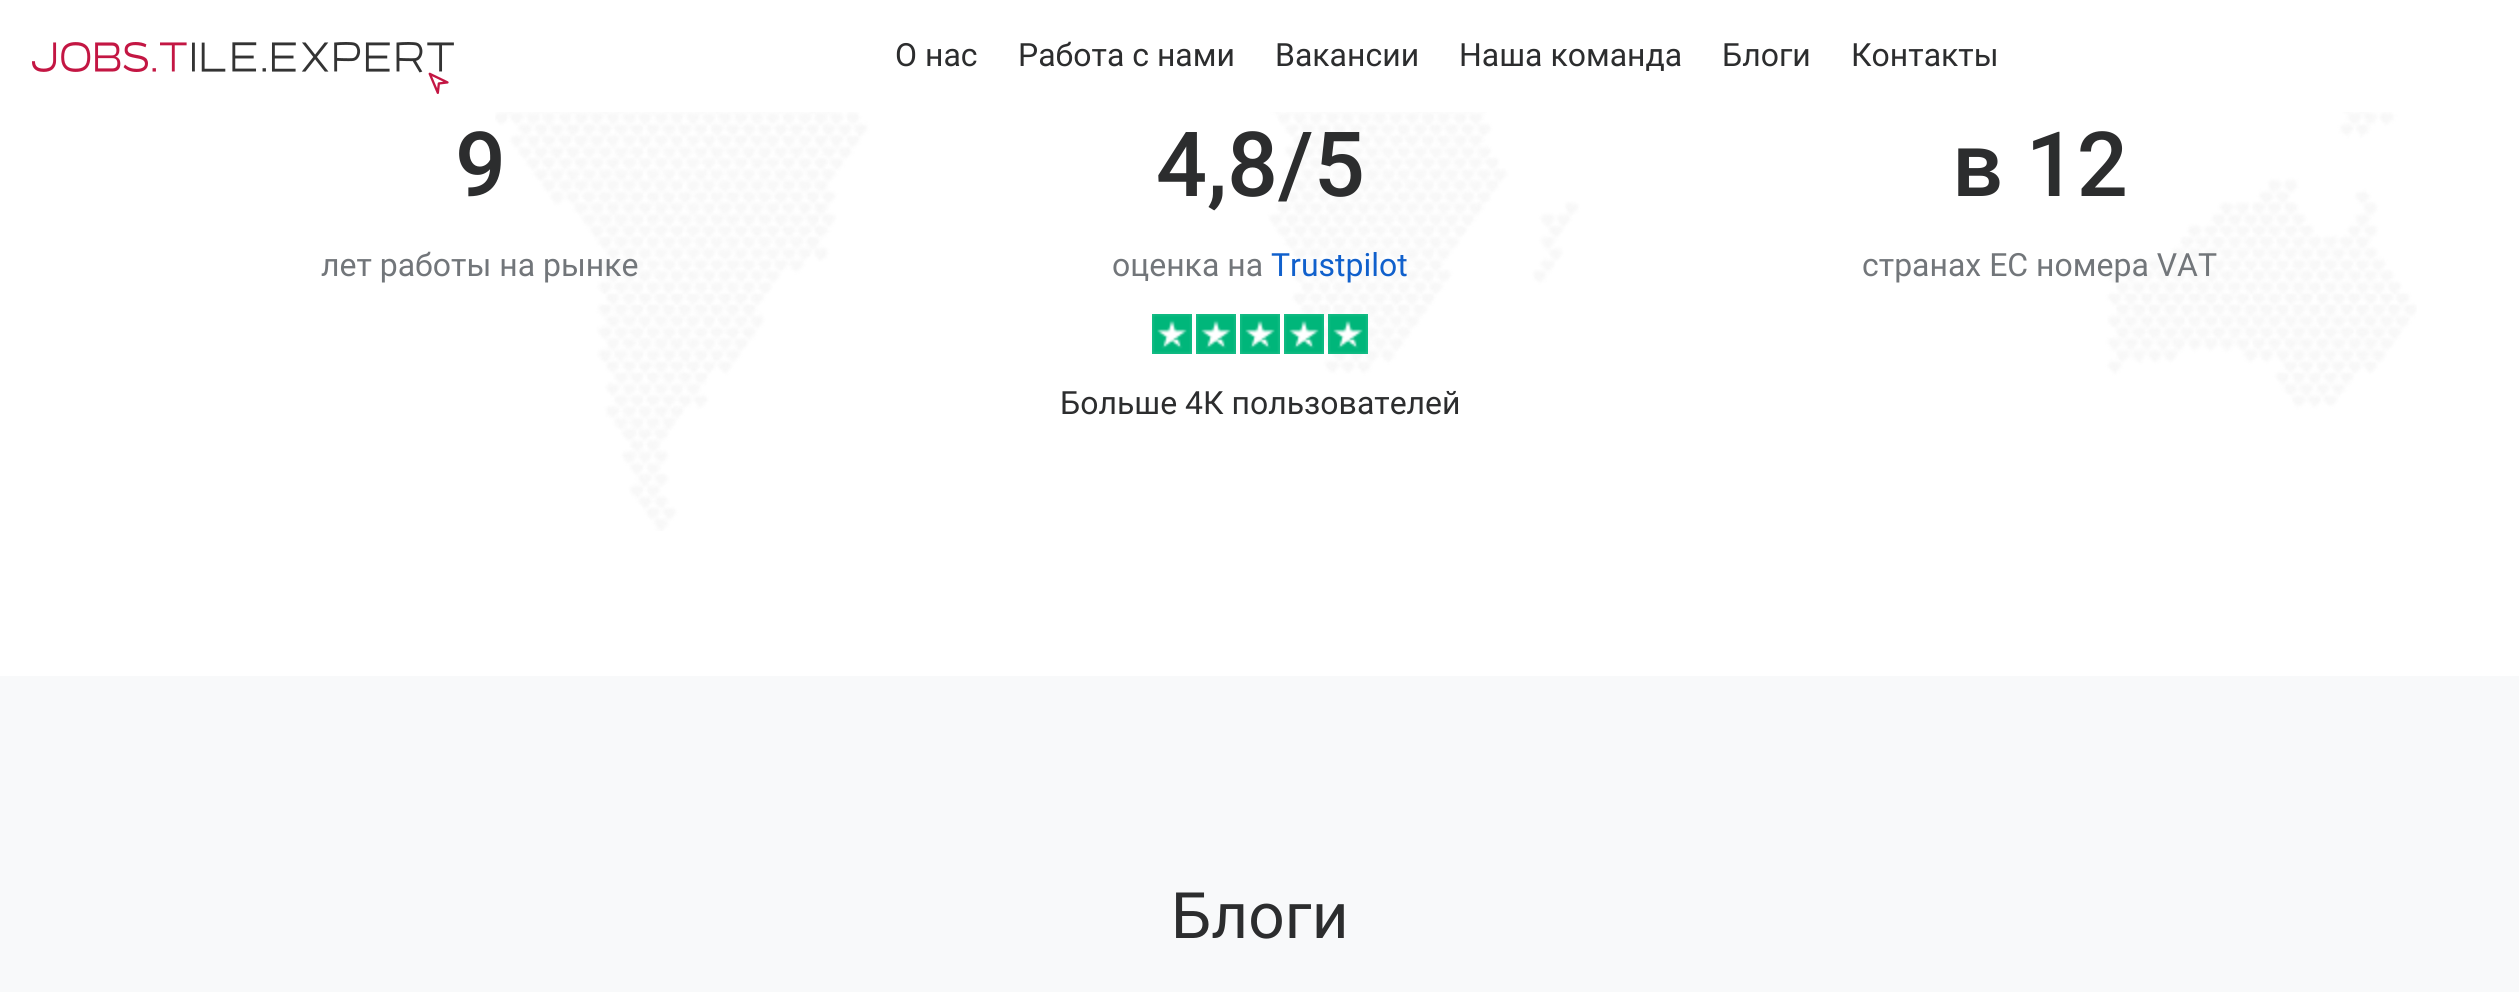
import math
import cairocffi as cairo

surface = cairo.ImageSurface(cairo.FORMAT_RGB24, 2519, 992)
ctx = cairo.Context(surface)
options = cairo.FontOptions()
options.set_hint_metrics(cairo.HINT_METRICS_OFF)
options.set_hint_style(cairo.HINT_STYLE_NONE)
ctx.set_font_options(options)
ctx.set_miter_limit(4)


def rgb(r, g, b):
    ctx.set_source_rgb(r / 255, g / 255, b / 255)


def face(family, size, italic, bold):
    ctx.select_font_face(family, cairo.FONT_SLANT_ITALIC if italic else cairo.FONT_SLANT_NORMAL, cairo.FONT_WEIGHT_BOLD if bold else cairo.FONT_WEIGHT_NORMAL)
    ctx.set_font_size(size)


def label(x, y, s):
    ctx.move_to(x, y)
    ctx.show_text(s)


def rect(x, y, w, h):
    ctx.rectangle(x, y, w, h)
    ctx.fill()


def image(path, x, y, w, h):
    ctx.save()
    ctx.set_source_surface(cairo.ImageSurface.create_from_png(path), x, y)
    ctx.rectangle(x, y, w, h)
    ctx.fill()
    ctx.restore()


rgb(255, 255, 255)
ctx.paint()
image('image0.png', 32, 42, 422, 52)
face('Roboto', 32, 0, 0)
rgb(44, 45, 46)
label(895, 66, 'О нас')
label(1018, 66, 'Работа с нами')
label(1275, 66, 'Вакансии')
label(1459, 66, 'Наша команда')
label(1722, 66, 'Блоги')
label(1851, 66, 'Контакты')
image('image1.png', 495, 112, 1922, 419)
face('Roboto Medium', 90, 0, 0)
label(455, 196, '9')
face('Roboto', 32, 0, 0)
rgb(114, 118, 122)
label(321, 276, 'лет работы на рынке')
face('Roboto Medium', 90, 0, 0)
rgb(44, 45, 46)
label(1156, 196, '4,8/5')
face('Roboto', 32, 0, 0)
rgb(114, 118, 122)
label(1112, 276, 'оценка на')
rgb(16, 96, 204)
label(1271, 276, 'Trustpilot')
image('image2.png', 1152, 314, 40, 40)
image('image2.png', 1196, 314, 40, 40)
image('image2.png', 1240, 314, 40, 40)
image('image2.png', 1284, 314, 40, 40)
image('image2.png', 1328, 314, 40, 40)
rgb(44, 45, 46)
label(1060, 414, 'Больше 4К пользователей')
face('Roboto Medium', 90, 0, 0)
label(1952, 196, 'в 12')
face('Roboto', 32, 0, 0)
rgb(114, 118, 122)
label(1862, 276, 'странах ЕС номера VAT')
rgb(248, 249, 250)
rect(0, 676, 2519, 316)
face('Roboto', 64, 0, 0)
rgb(44, 45, 46)
label(1171, 938, 'Блоги')
surface.write_to_png('render.png')
